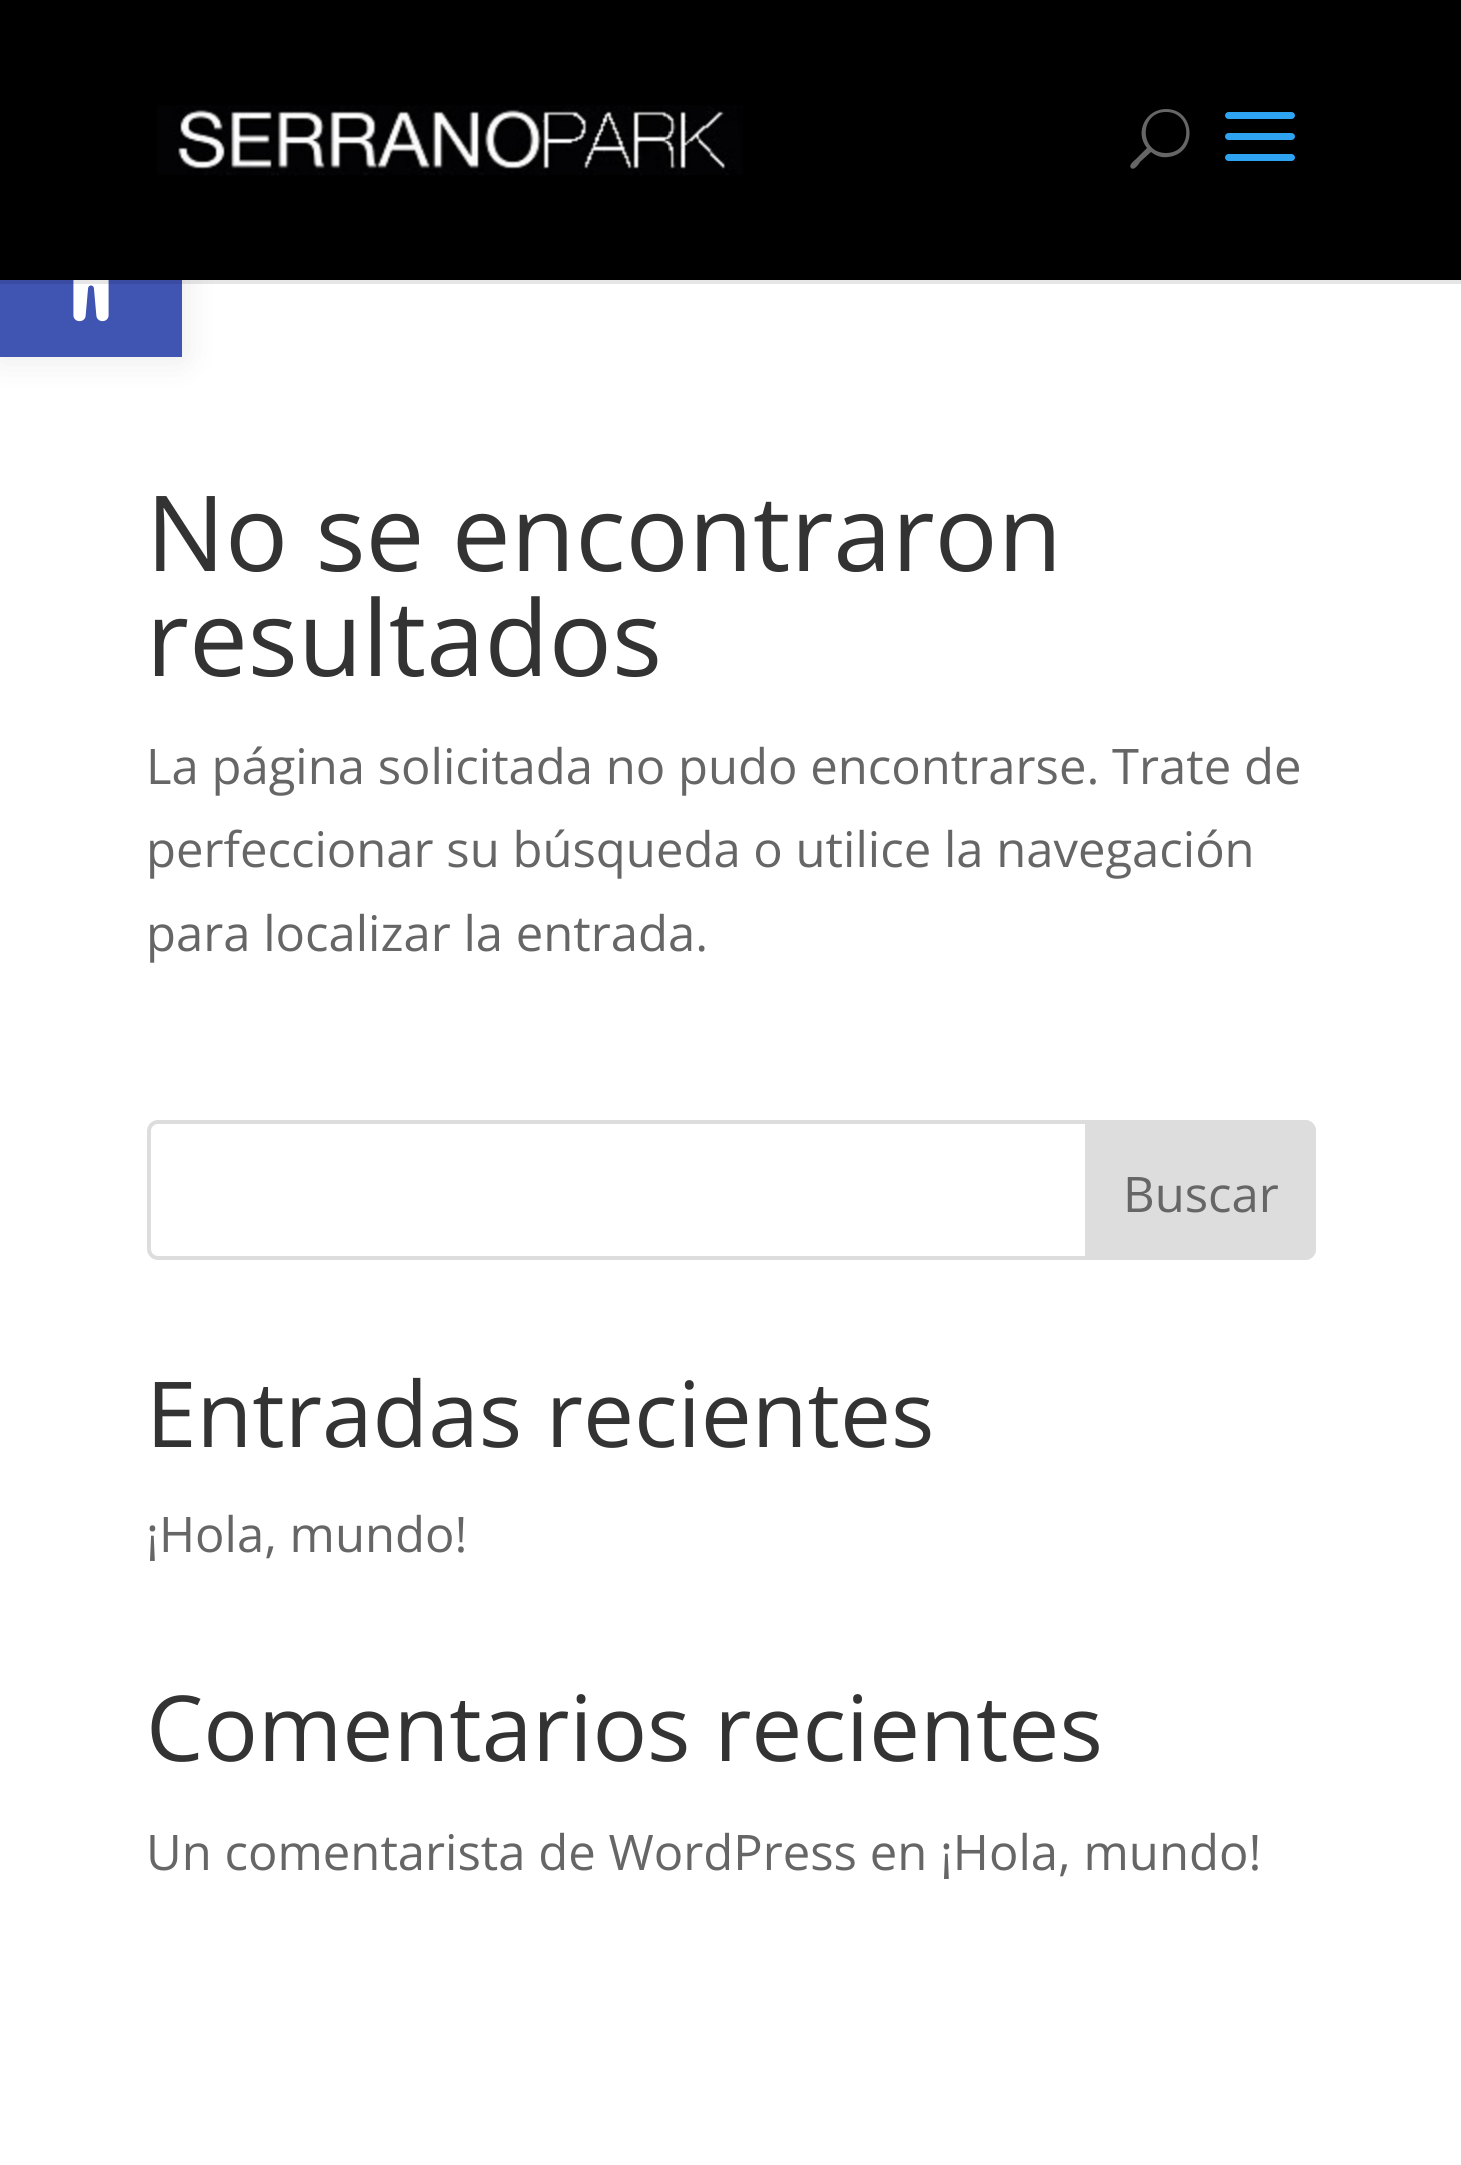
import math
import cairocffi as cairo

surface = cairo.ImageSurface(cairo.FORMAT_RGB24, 1461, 2165)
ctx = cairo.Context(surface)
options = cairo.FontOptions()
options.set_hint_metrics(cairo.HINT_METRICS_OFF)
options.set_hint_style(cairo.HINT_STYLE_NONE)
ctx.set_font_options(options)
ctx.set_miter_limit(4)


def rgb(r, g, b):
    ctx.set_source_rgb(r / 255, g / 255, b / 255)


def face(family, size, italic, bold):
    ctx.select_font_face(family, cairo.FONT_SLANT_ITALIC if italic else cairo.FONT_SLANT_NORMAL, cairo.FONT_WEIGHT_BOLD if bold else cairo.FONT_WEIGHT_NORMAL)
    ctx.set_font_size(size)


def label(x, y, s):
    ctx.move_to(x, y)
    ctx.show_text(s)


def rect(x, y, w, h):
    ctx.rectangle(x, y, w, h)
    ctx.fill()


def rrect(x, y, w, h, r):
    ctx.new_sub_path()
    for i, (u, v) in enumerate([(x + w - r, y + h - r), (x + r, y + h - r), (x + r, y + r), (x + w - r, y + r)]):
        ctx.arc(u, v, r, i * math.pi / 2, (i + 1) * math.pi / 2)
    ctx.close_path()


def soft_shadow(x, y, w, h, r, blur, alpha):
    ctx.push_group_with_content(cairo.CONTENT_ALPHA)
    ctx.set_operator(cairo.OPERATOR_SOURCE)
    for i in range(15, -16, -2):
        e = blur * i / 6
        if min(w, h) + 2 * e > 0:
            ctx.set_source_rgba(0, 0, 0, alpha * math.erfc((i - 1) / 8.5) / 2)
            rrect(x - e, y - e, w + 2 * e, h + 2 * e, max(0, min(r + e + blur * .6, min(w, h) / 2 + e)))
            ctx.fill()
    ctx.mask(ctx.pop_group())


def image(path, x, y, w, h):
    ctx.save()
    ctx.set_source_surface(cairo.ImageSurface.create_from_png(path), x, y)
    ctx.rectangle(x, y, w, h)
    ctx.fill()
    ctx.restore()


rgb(255, 255, 255)
ctx.paint()
rgb(0, 0, 0)
soft_shadow(0, 175, 182, 182, 0, 17.5, 0.1)
rgb(64, 84, 178)
rect(0, 280, 182, 77)
image('image0.png', 73, 280, 36, 42)
ctx.set_source_rgba(0, 0, 0, 0.1)
rect(0, 280, 1461, 4)
rgb(0, 0, 0)
rect(0, 0, 1461, 280)
image('image1.png', 157, 105, 586, 71)
rgb(102, 102, 102)
ctx.new_path()
ctx.move_to(1166, 109)
ctx.curve_to(1146, 109, 1134, 132, 1147, 148)
ctx.line_to(1136, 159)
ctx.curve_to(1135, 160, 1128, 165, 1131, 168)
ctx.curve_to(1134, 171, 1139, 164, 1140, 162)
ctx.line_to(1151, 152)
ctx.curve_to(1156, 156, 1162, 158, 1168, 157)
ctx.curve_to(1198, 154, 1196, 109, 1166, 109)
ctx.close_path()
ctx.move_to(1166, 153)
ctx.curve_to(1139, 153, 1139, 112, 1166, 112)
ctx.curve_to(1193, 112, 1193, 153, 1166, 153)
ctx.close_path()
ctx.fill()
image('image2.png', 1225, 112, 70, 49)
face('Open Sans', 105, 0, 0)
rgb(51, 51, 51)
label(146, 571, 'No se encontraron')
label(146, 676, 'resultados')
face('Open Sans', 49, 0, 0)
rgb(102, 102, 102)
label(146, 784, 'La página solicitada no pudo encontrarse. Trate de')
label(146, 867, 'perfeccionar su búsqueda o utilice la navegación')
label(146, 951, 'para localizar la entrada.')
rrect(149, 1122, 1165, 136, 9)
rgb(221, 221, 221)
ctx.set_line_width(4)
ctx.stroke()
ctx.new_path()
ctx.move_to(1087, 1122)
ctx.line_to(1305, 1122)
ctx.curve_to(1310, 1122, 1314, 1126, 1314, 1131)
ctx.line_to(1314, 1249)
ctx.curve_to(1314, 1254, 1310, 1258, 1305, 1258)
ctx.line_to(1087, 1258)
ctx.close_path()
ctx.fill_preserve()
ctx.stroke()
rgb(102, 102, 102)
label(1123, 1212, 'Buscar')
face('Open Sans', 91, 0, 0)
rgb(51, 51, 51)
label(146, 1447, 'Entradas recientes')
face('Open Sans', 49, 0, 0)
rgb(102, 102, 102)
label(146, 1552, '¡Hola, mundo!')
face('Open Sans', 91, 0, 0)
rgb(51, 51, 51)
label(146, 1761, 'Comentarios recientes')
face('Open Sans', 49, 0, 0)
rgb(102, 102, 102)
label(146, 1870, 'Un comentarista de WordPress en ¡Hola, mundo!')
surface.write_to_png('render.png')
